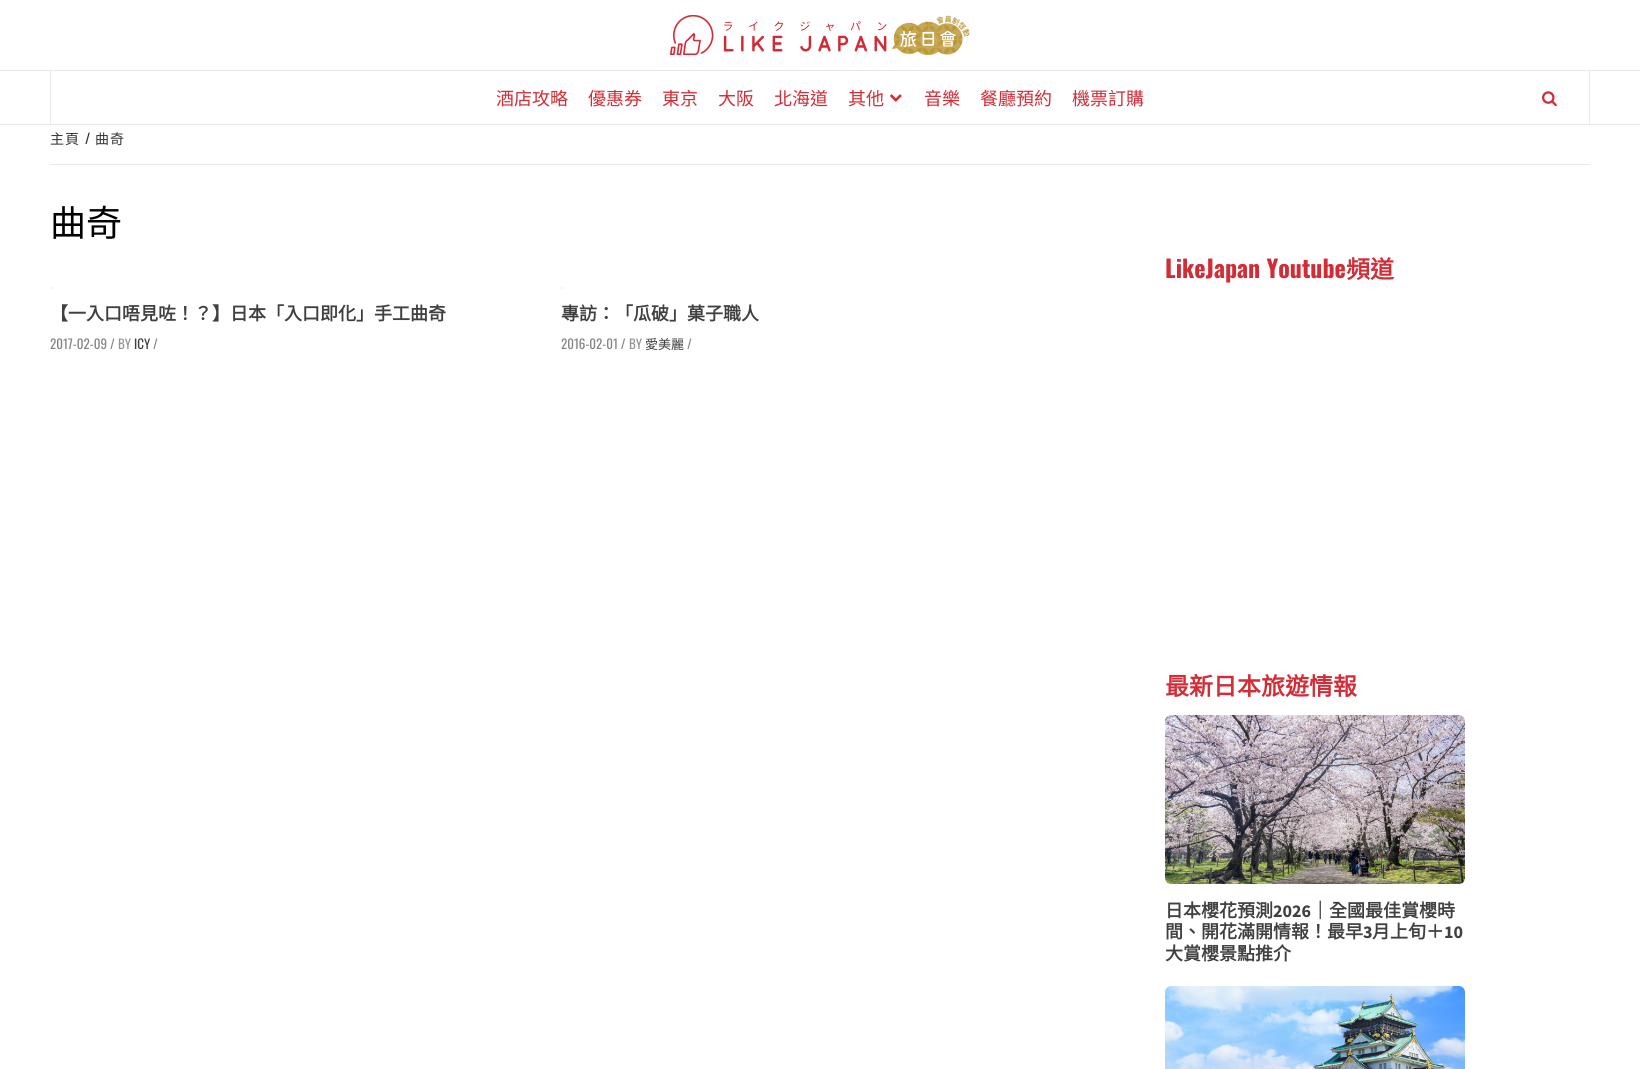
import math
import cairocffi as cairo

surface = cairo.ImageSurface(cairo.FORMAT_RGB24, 1640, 1069)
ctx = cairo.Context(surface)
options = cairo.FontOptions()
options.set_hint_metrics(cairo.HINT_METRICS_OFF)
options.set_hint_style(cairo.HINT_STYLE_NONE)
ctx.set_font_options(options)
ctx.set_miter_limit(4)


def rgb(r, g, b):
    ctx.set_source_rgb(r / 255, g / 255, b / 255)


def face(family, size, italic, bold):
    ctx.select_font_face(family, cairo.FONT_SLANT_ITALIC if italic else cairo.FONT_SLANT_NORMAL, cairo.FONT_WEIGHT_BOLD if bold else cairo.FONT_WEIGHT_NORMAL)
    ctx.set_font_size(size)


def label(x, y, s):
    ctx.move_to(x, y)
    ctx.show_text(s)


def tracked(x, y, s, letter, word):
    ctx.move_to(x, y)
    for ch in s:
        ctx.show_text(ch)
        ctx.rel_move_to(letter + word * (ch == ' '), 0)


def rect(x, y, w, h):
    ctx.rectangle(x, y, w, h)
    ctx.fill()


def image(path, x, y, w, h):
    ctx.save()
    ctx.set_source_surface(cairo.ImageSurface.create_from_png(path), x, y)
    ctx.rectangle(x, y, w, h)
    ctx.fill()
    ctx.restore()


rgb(255, 255, 255)
ctx.paint()
image('image0.png', 670, 15, 300, 40)
rgb(232, 232, 232)
rect(0, 70, 1640, 1)
rect(0, 124, 1640, 1)
rect(1589, 71, 1, 53)
rect(50, 71, 1, 53)
face('Noto Sans CJK HK', 18, 0, 0)
rgb(210, 45, 55)
label(496, 105, '酒店攻略')
label(588, 105, '優惠券')
label(662, 105, '東京')
label(718, 105, '大阪')
label(774, 105, '北海道')
label(848, 105, '其他')
image('image1.png', 890, 94, 12, 8)
label(924, 105, '音樂')
label(980, 105, '餐廳預約')
label(1072, 105, '機票訂購')
image('image2.png', 1542, 91, 15, 16)
rgb(232, 232, 232)
rect(50, 164, 1540, 1)
face('Noto Sans CJK HK', 14, 0, 0)
rgb(51, 51, 51)
tracked(50, 144, '主頁', 1, 0)
face('Oswald', 14, 0, 0)
tracked(85, 144, '/', 1, 0)
face('Noto Sans CJK HK', 14, 0, 0)
tracked(95, 144, '曲奇', 1, 0)
face('Noto Sans CJK HK', 36, 0, 0)
rgb(0, 0, 0)
label(50, 236, '曲奇')
rgb(238, 238, 238)
ctx.new_path()
ctx.arc(51, 288, 1, 0, 2 * math.pi)
ctx.fill()
face('Noto Sans CJK HK', 18, 0, 1)
rgb(64, 64, 64)
label(50, 320, '【一入口唔見咗！？】日本「入口即化」手工曲奇')
face('Oswald', 13, 0, 0)
rgb(133, 133, 133)
label(50, 349, '2017-02-09 /')
rgb(149, 149, 149)
label(118, 349, 'BY')
rgb(64, 64, 64)
label(134, 349, 'ICY')
rgb(133, 133, 133)
label(153, 349, '/')
rgb(238, 238, 238)
ctx.new_path()
ctx.arc(562, 288, 1, 0, 2 * math.pi)
ctx.fill()
face('Noto Sans CJK HK', 18, 0, 1)
rgb(64, 64, 64)
label(561, 320, '專訪：「瓜破」菓子職人')
face('Oswald', 13, 0, 0)
rgb(133, 133, 133)
label(561, 349, '2016-02-01 /')
rgb(149, 149, 149)
label(629, 349, 'BY')
face('Noto Sans CJK HK', 13, 0, 0)
rgb(64, 64, 64)
label(645, 349, '愛美麗')
face('Oswald', 13, 0, 0)
rgb(133, 133, 133)
label(687, 349, '/')
face('Oswald', 24, 0, 1)
rgb(210, 45, 55)
label(1165, 278, 'LikeJapan Youtube')
face('Noto Sans CJK HK', 24, 0, 1)
label(1346, 278, '頻道')
label(1165, 695, '最新日本旅遊情報')
image('image3.png', 1165, 715, 300, 169)
face('Noto Sans CJK HK', 18, 0, 1)
rgb(64, 64, 64)
label(1165, 917, '日本櫻花預測')
face('Source Sans Pro', 18, 0, 1)
label(1273, 917, '2026')
face('Noto Sans CJK HK', 18, 0, 1)
label(1311, 917, '｜全國最佳賞櫻時')
label(1165, 938, '間、開花滿開情報！最早')
face('Source Sans Pro', 18, 0, 1)
label(1363, 938, '3')
face('Noto Sans CJK HK', 18, 0, 1)
label(1372, 938, '月上旬＋')
face('Source Sans Pro', 18, 0, 1)
label(1444, 938, '10')
face('Noto Sans CJK HK', 18, 0, 1)
label(1165, 960, '大賞櫻景點推介')
image('image4.png', 1165, 986, 300, 83)
surface.write_to_png('render.png')
